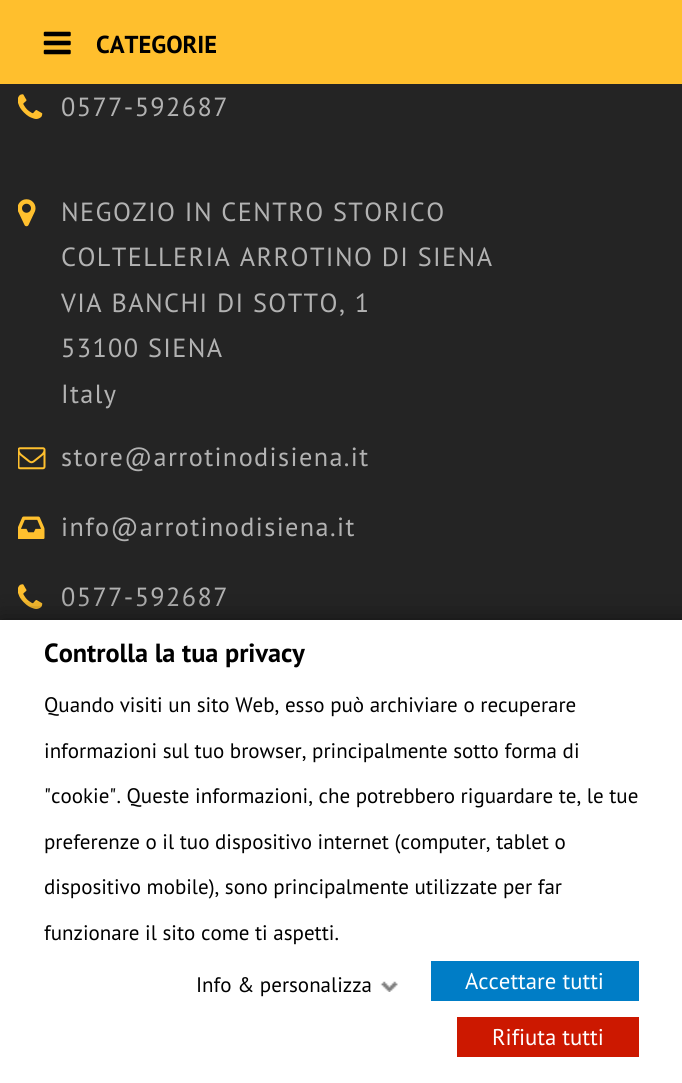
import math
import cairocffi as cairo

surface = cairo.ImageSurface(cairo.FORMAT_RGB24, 682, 1083)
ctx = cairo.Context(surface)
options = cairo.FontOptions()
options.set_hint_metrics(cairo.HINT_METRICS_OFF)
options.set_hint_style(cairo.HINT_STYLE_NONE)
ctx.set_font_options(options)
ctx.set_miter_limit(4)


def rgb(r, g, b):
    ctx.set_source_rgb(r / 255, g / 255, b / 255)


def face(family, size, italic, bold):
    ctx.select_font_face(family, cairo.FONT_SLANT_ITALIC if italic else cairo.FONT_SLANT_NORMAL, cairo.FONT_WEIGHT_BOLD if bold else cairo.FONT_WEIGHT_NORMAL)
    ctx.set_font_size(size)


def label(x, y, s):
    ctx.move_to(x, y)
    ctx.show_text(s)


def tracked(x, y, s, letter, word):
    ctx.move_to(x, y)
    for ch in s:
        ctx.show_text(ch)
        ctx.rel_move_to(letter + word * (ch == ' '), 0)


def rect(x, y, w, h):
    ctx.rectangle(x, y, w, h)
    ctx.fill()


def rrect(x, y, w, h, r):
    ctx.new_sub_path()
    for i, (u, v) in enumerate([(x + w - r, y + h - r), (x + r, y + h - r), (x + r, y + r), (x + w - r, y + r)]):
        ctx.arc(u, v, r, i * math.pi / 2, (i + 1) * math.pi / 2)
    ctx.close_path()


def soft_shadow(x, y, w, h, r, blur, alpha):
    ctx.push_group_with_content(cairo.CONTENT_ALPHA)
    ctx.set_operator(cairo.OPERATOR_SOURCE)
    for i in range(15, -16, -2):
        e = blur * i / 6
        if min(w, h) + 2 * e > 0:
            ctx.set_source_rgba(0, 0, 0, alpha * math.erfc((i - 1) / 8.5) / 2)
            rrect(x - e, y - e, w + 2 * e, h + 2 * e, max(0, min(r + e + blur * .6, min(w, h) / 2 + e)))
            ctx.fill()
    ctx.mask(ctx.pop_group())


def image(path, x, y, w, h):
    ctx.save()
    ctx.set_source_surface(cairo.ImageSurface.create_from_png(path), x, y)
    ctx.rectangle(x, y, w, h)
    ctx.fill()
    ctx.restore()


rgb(36, 36, 36)
ctx.paint()
rgb(255, 191, 45)
rect(0, 0, 682, 84)
image('image0.png', 43, 31, 28, 24)
face('PT Sans', 24.5, 0, 1)
rgb(0, 0, 0)
label(96, 53, 'CATEGORIE')
image('image1.png', 18, 94, 25, 25)
face('PT Sans', 26.25, 0, 0)
rgb(178, 178, 178)
tracked(61, 116, '0577-592687', 1.4, 0)
image('image2.png', 18, 199, 18, 28)
tracked(61, 221, 'NEGOZIO IN CENTRO STORICO', 1.4, 0)
tracked(61, 266, 'COLTELLERIA ARROTINO DI SIENA', 1.4, 0)
tracked(61, 312, 'VIA BANCHI DI SOTTO, 1', 1.4, 0)
tracked(61, 357, '53100 SIENA', 1.4, 0)
tracked(61, 403, 'Italy', 1.4, 0)
image('image3.png', 18, 447, 28, 23)
tracked(61, 466, 'store@arrotinodisiena.it', 1.4, 0)
image('image4.png', 18, 516, 27, 23)
tracked(61, 536, 'info@arrotinodisiena.it', 1.4, 0)
image('image1.png', 18, 584, 25, 25)
tracked(61, 606, '0577-592687', 1.4, 0)
rgb(18, 18, 18)
soft_shadow(0, 620, 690, 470, 0, 12, 1)
rgb(255, 255, 255)
rect(0, 620, 682, 463)
face('PT Sans', 26.25, 0, 1)
rgb(0, 0, 0)
label(44, 662, 'Controlla la tua privacy')
face('PT Sans', 21, 0, 0)
label(44, 712, 'Quando visiti un sito Web, esso può archiviare o recuperare')
label(44, 758, 'informazioni sul tuo browser, principalmente sotto forma di')
label(44, 803, '"cookie". Queste informazioni, che potrebbero riguardare te, le tue')
label(44, 849, 'preferenze o il tuo dispositivo internet (computer, tablet o')
label(44, 894, 'dispositivo mobile), sono principalmente utilizzate per far')
label(44, 940, 'funzionare il sito come ti aspetti.')
label(196, 992, 'Info & personalizza')
image('image5.png', 380, 981, 18, 11)
rgb(0, 125, 198)
rect(431, 961, 208, 40)
face('PT Sans', 22.75, 0, 0)
rgb(255, 255, 255)
label(465, 989, 'Accettare tutti')
rgb(204, 24, 0)
rect(457, 1017, 182, 40)
rgb(255, 255, 255)
label(492, 1045, 'Rifiuta tutti')
surface.write_to_png('render.png')
